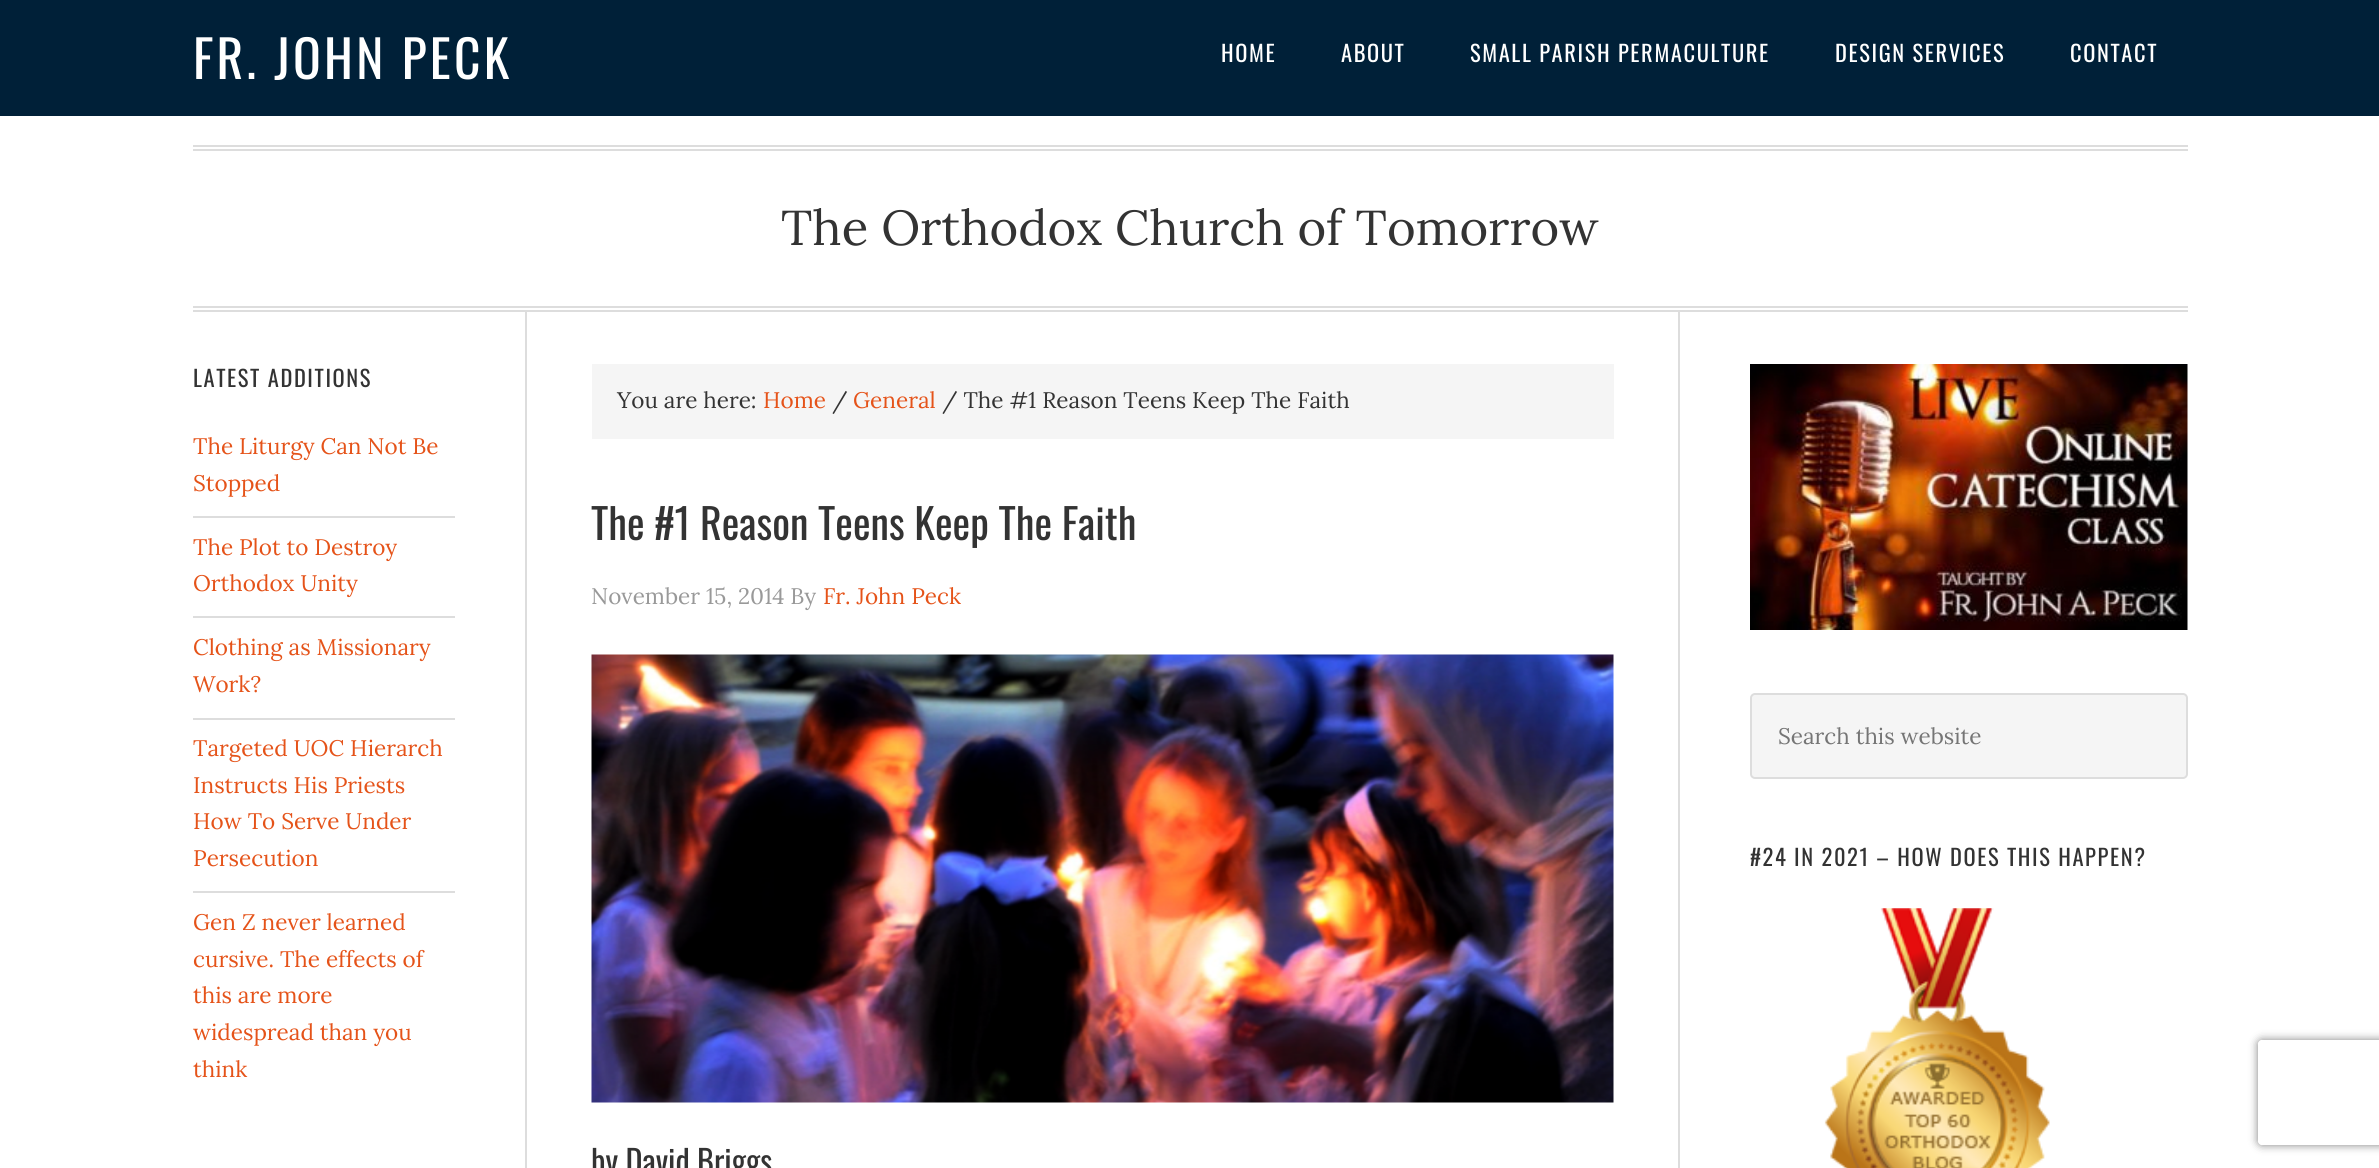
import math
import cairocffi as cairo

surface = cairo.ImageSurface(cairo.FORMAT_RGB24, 2379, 1168)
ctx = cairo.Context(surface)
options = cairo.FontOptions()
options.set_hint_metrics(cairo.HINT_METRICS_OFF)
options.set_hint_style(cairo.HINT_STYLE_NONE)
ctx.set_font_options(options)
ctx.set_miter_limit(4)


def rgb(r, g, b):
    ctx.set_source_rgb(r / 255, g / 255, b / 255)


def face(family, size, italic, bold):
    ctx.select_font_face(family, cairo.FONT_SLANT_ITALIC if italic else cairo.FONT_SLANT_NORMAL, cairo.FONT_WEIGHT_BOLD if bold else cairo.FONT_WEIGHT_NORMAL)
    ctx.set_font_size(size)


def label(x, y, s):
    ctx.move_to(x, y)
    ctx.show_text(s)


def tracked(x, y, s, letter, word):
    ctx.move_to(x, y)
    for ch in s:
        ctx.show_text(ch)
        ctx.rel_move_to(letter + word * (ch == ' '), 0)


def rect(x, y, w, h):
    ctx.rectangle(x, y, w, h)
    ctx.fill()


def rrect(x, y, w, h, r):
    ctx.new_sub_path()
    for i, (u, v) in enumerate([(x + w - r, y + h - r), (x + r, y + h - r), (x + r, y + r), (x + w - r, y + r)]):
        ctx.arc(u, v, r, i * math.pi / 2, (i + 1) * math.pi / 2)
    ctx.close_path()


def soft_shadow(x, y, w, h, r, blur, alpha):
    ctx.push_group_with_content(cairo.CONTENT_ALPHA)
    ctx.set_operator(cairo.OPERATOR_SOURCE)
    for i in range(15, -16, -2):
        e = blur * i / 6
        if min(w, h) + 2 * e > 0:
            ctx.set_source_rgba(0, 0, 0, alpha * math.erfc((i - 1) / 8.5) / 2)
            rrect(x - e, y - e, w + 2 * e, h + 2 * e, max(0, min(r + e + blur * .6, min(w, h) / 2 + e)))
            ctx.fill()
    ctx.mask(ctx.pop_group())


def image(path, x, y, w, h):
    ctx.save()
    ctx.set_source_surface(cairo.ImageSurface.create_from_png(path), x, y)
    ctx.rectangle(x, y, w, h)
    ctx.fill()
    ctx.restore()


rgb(255, 255, 255)
ctx.paint()
rgb(0, 32, 56)
rect(0, 0, 2379, 116)
face('Oswald', 51.5, 0, 0)
rgb(255, 255, 255)
tracked(193, 79, 'FR. JOHN PECK', 3.25, 0)
face('Oswald', 22.5, 0, 0)
tracked(1221, 62, 'HOME', 1.6, 0)
tracked(1341, 62, 'ABOUT', 1.6, 0)
tracked(1470, 62, 'SMALL PARISH PERMACULTURE', 1.6, 0)
tracked(1835, 62, 'DESIGN SERVICES', 1.6, 0)
tracked(2070, 62, 'CONTACT', 1.6, 0)
rgb(221, 221, 221)
rect(193, 145, 1995, 2)
rect(193, 149, 1995, 2)
rect(193, 306, 1995, 2)
rect(193, 310, 1995, 2)
face('Lora', 49, 0, 0)
rgb(51, 51, 51)
label(781, 245, 'The Orthodox Church of Tomorrow')
face('Oswald', 22.5, 0, 0)
tracked(193, 387, 'LATEST ADDITIONS', 1.6, 0)
rgb(221, 221, 221)
rect(193, 516, 262, 2)
face('Lora', 22.5, 0, 0)
rgb(229, 83, 25)
label(193, 454, 'The Liturgy Can Not Be')
label(193, 491, 'Stopped')
rgb(221, 221, 221)
rect(193, 616, 262, 2)
rgb(229, 83, 25)
label(193, 555, 'The Plot to Destroy')
label(193, 591, 'Orthodox Unity')
rgb(221, 221, 221)
rect(193, 718, 262, 2)
rgb(229, 83, 25)
label(193, 655, 'Clothing as Missionary')
label(193, 692, 'Work?')
rgb(221, 221, 221)
rect(193, 891, 262, 2)
rgb(229, 83, 25)
label(193, 756, 'Targeted UOC Hierarch')
label(193, 793, 'Instructs His Priests')
label(193, 829, 'How To Serve Under')
label(193, 866, 'Persecution')
label(193, 930, 'Gen Z never learned')
label(193, 967, 'cursive. The effects of')
label(193, 1003, 'this are more')
label(193, 1040, 'widespread than you')
label(193, 1077, 'think')
rgb(221, 221, 221)
rect(1678, 312, 2, 856)
rect(525, 312, 2, 856)
rgb(245, 245, 245)
rect(592, 364, 1022, 75)
rgb(51, 51, 51)
label(617, 408, 'You are here:')
rgb(229, 83, 25)
label(763, 408, 'Home')
rgb(51, 51, 51)
label(832, 408, '/')
rgb(229, 83, 25)
label(853, 408, 'General')
rgb(51, 51, 51)
label(942, 408, '/ The #1 Reason Teens Keep The Faith')
face('Oswald', 41.9, 0, 0)
label(591, 540, 'The #1 Reason Teens Keep The Faith')
face('Lora', 22.5, 0, 0)
rgb(153, 153, 153)
label(591, 604, 'November 15, 2014 By')
rgb(229, 83, 25)
label(823, 604, 'Fr. John Peck')
image('image0.png', 591, 654, 1023, 449)
face('Oswald', 32.25, 0, 0)
rgb(51, 51, 51)
label(591, 1174, 'by David Briggs')
image('image1.png', 1750, 364, 438, 266)
rgb(245, 245, 245)
rrect(1751, 694, 436, 84, 4)
ctx.fill_preserve()
rgb(221, 221, 221)
ctx.stroke()
face('Lora', 22.5, 0, 0)
rgb(117, 117, 117)
label(1778, 744, 'Search this website')
face('Oswald', 22.5, 0, 0)
rgb(51, 51, 51)
tracked(1750, 866, '#24 IN 2021 – HOW DOES THIS HAPPEN?', 1.6, 0)
image('image2.png', 1824, 908, 226, 260)
ctx.save()
ctx.set_fill_rule(cairo.FILL_RULE_EVEN_ODD)
ctx.new_path()
ctx.move_to(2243, 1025)
ctx.line_to(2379, 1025)
ctx.line_to(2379, 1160)
ctx.line_to(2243, 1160)
ctx.close_path()
ctx.move_to(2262, 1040)
ctx.line_to(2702, 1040)
ctx.curve_to(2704, 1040, 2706, 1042, 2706, 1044)
ctx.line_to(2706, 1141)
ctx.curve_to(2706, 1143, 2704, 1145, 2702, 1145)
ctx.line_to(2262, 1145)
ctx.curve_to(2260, 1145, 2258, 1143, 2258, 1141)
ctx.line_to(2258, 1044)
ctx.curve_to(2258, 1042, 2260, 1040, 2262, 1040)
ctx.close_path()
ctx.clip()
rgb(128, 128, 128)
soft_shadow(2258, 1040, 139, 105, 4, 4.5, 1)
ctx.restore()
surface.write_to_png('render.png')
